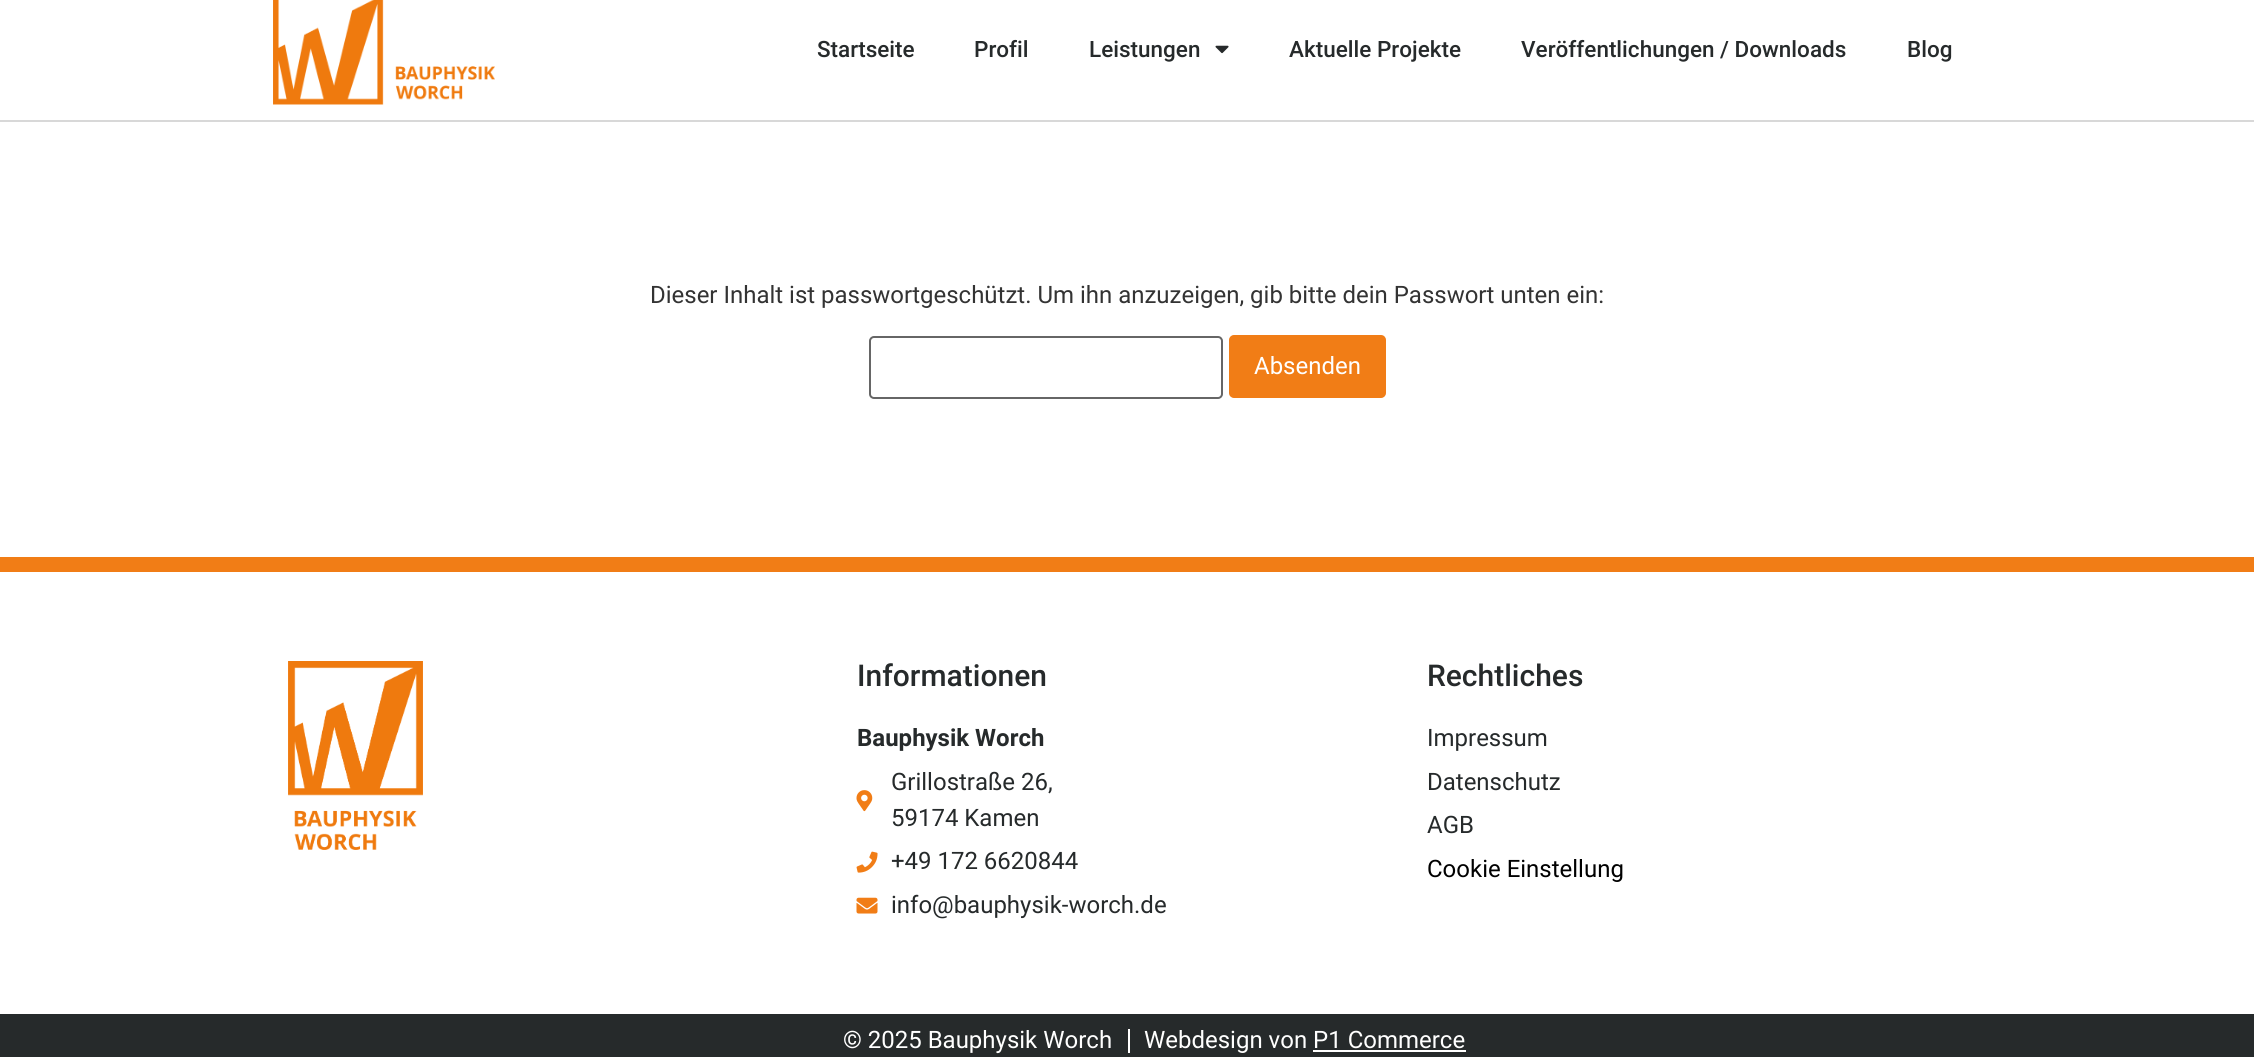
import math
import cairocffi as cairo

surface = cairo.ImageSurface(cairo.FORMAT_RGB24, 2254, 1057)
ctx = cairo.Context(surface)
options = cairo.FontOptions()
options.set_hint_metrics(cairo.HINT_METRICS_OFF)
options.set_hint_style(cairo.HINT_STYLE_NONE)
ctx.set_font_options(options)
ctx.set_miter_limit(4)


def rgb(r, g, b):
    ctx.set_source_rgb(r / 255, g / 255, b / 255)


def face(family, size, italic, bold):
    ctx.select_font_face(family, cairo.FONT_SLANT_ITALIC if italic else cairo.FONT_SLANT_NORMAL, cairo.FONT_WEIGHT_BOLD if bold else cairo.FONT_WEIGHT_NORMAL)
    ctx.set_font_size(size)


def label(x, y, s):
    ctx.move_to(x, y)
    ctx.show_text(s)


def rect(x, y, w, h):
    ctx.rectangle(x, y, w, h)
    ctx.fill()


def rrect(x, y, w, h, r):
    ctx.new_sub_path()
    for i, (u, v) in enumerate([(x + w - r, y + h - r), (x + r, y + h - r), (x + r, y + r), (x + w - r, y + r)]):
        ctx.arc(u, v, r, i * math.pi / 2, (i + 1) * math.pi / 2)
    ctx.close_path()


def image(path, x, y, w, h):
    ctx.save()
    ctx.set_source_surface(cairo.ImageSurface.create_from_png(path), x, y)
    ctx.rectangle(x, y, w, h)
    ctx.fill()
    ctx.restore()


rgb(255, 255, 255)
ctx.paint()
rgb(216, 216, 216)
rect(0, 120, 2254, 2)
image('image0.png', 273, 0, 222, 105)
face('Roboto Medium', 22.5, 0, 0)
rgb(38, 42, 43)
label(817, 57, 'Startseite')
label(974, 57, 'Profil')
label(1089, 57, 'Leistungen')
image('image1.png', 1215, 45, 14, 9)
label(1289, 57, 'Aktuelle Projekte')
label(1521, 57, 'Veröffentlichungen / Downloads')
label(1907, 57, 'Blog')
face('Roboto', 24, 0, 0)
rgb(51, 51, 51)
label(650, 303, 'Dieser Inhalt ist passwortgeschützt. Um ihn anzuzeigen, gib bitte dein Passwort unten ein:')
rrect(870, 337, 352, 61, 4)
rgb(102, 102, 102)
ctx.stroke()
rgb(241, 125, 22)
rrect(1230, 336, 155, 61, 4)
ctx.fill_preserve()
ctx.stroke()
rgb(255, 255, 255)
label(1254, 374, 'Absenden')
rgb(241, 125, 22)
rect(0, 557, 2254, 15)
image('image2.png', 288, 661, 135, 189)
face('Roboto Medium', 30, 0, 0)
rgb(38, 42, 43)
label(857, 686, 'Informationen')
face('Roboto', 24, 0, 1)
label(857, 746, 'Bauphysik Worch')
image('image3.png', 856, 790, 17, 22)
face('Roboto', 24, 0, 0)
label(891, 790, 'Grillostraße 26,')
label(891, 826, '59174 Kamen')
image('image4.png', 856, 851, 22, 22)
label(891, 869, '+49 172 6620844')
image('image5.png', 856, 897, 22, 17)
label(891, 913, 'info@bauphysik-worch.de')
face('Roboto Medium', 30, 0, 0)
label(1427, 686, 'Rechtliches')
face('Roboto', 24, 0, 0)
label(1427, 746, 'Impressum')
label(1427, 790, 'Datenschutz')
label(1427, 833, 'AGB')
rgb(0, 0, 0)
label(1427, 877, 'Cookie Einstellung')
rgb(38, 42, 43)
rect(0, 1014, 2254, 43)
rgb(255, 255, 255)
label(843, 1048, '© 2025 Bauphysik Worch')
rect(1128, 1029, 2, 24)
label(1144, 1048, 'Webdesign von P1 Commerce')
rect(1313, 1050, 153, 2)
surface.write_to_png('render.png')
